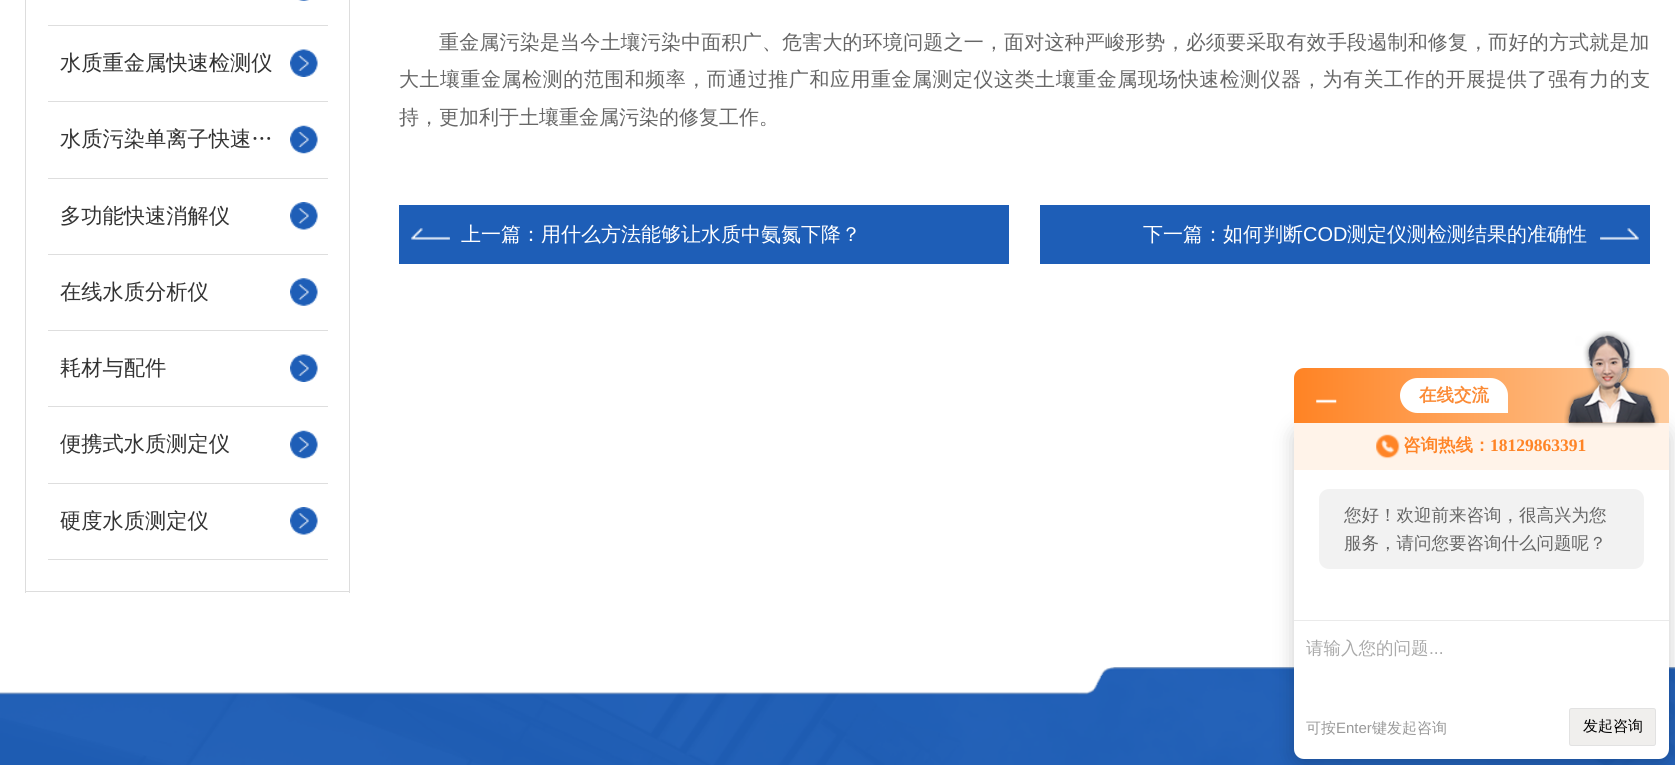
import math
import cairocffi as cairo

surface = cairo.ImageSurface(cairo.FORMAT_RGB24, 1675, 765)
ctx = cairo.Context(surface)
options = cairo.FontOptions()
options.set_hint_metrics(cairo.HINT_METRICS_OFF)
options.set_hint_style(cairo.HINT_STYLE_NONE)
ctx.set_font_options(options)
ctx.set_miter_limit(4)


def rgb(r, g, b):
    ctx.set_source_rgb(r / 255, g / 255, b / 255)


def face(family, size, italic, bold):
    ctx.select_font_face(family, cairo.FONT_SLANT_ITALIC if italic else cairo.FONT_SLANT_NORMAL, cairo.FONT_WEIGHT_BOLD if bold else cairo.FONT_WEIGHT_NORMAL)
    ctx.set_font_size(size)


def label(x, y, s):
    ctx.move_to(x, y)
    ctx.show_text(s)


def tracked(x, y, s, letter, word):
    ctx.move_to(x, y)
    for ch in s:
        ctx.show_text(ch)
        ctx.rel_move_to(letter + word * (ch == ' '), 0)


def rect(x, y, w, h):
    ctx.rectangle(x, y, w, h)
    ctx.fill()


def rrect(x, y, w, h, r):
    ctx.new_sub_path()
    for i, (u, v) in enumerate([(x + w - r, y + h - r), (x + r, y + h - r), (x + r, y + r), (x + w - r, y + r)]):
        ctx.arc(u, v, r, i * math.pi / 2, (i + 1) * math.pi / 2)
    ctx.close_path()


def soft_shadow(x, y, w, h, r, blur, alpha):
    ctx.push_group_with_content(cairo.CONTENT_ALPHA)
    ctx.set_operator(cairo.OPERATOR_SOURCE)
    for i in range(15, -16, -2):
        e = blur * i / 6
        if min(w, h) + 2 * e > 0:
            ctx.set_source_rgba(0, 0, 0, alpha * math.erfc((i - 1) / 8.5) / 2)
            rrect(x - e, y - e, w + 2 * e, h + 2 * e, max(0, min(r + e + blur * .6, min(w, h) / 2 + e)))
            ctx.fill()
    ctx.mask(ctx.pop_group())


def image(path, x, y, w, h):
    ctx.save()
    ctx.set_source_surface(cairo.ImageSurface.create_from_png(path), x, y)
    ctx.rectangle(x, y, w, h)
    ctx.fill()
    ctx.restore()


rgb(255, 255, 255)
ctx.paint()
rgb(221, 221, 221)
rect(349, 0, 1, 593)
rect(25, 591, 325, 1)
rect(25, 0, 1, 593)
rgb(222, 222, 222)
rect(48, 25, 280, 1)
image('image0.png', 298, 0, 11, 1)
rect(48, 101, 280, 1)
face('WenQuanYi Zen Hei Medium', 21.25, 0, 0)
rgb(51, 51, 51)
label(60, 70, '水质重金属快速检测仪')
image('image1.png', 290, 49, 28, 28)
rgb(222, 222, 222)
rect(48, 178, 280, 1)
rgb(51, 51, 51)
label(60, 146, '水质污染单离子快速…')
image('image2.png', 290, 125, 28, 29)
rgb(222, 222, 222)
rect(48, 254, 280, 1)
rgb(51, 51, 51)
label(60, 223, '多功能快速消解仪')
image('image3.png', 290, 202, 28, 28)
rgb(222, 222, 222)
rect(48, 330, 280, 1)
rgb(51, 51, 51)
label(60, 299, '在线水质分析仪')
image('image4.png', 290, 278, 28, 28)
rgb(222, 222, 222)
rect(48, 406, 280, 1)
rgb(51, 51, 51)
label(60, 375, '耗材与配件')
image('image1.png', 290, 354, 28, 28)
rgb(222, 222, 222)
rect(48, 483, 280, 1)
rgb(51, 51, 51)
label(60, 451, '便携式水质测定仪')
image('image2.png', 290, 430, 28, 29)
rgb(222, 222, 222)
rect(48, 559, 280, 1)
rgb(51, 51, 51)
label(60, 528, '硬度水质测定仪')
image('image3.png', 290, 507, 28, 28)
face('WenQuanYi Zen Hei Medium', 20, 0, 0)
rgb(102, 102, 102)
tracked(439, 49, '重金属污染是当今土壤污染中面积广、危害大的环境问题之一，面对这种严峻形势，必须要采取有效手段遏制和修复，而好的方式就是加', 0.18, 0)
tracked(399, 86, '大土壤重金属检测的范围和频率，而通过推广和应用重金属测定仪这类土壤重金属现场快速检测仪器，为有关工作的开展提供了强有力的支', 0.52, 0)
label(399, 124, '持，更加利于土壤重金属污染的修复工作。')
rgb(30, 94, 183)
rect(399, 205, 610, 59)
image('image5.png', 411, 228, 39, 12)
rgb(255, 255, 255)
label(461, 241, '上一篇：用什么方法能够让水质中氨氮下降？')
rgb(30, 94, 183)
rect(1040, 205, 610, 59)
image('image6.png', 1600, 228, 39, 12)
rgb(255, 255, 255)
label(1143, 241, '下一篇：如何判断')
face('Liberation Sans', 20, 0, 0)
label(1303, 241, 'COD')
face('WenQuanYi Zen Hei Medium', 20, 0, 0)
label(1347, 241, '测定仪测检测结果的准确性')
image('image10.png', 0, 667, 1675, 98)
rgb(0, 0, 0)
soft_shadow(1294, 428, 375, 336, 10, 10, 0.2)
gradient = cairo.LinearGradient(1294, 395, 1669, 395)
gradient.add_color_stop_rgba(0, 1, 0.514, 0.141, 1)
gradient.add_color_stop_rgba(1, 0.996, 0.796, 0.612, 1)
ctx.set_source(gradient)
ctx.new_path()
ctx.move_to(1304, 368)
ctx.line_to(1659, 368)
ctx.curve_to(1664.5, 368, 1669, 372.5, 1669, 378)
ctx.line_to(1669, 423)
ctx.line_to(1294, 423)
ctx.line_to(1294, 378)
ctx.curve_to(1294, 372.5, 1298.5, 368, 1304, 368)
ctx.close_path()
ctx.fill()
image('image7.png', 1316, 399, 21, 5)
rgb(255, 255, 255)
ctx.new_path()
ctx.move_to(1417.5, 378)
ctx.line_to(1490.5, 378)
ctx.curve_to(1500, 378, 1508, 386, 1508, 395.5)
ctx.line_to(1508, 413)
ctx.line_to(1417.5, 413)
ctx.curve_to(1408, 413, 1400, 405, 1400, 395.5)
ctx.curve_to(1400, 386, 1408, 378, 1417.5, 378)
ctx.close_path()
ctx.fill()
face('WenQuanYi Zen Hei', 17.5, 0, 1)
rgb(251, 139, 54)
label(1419, 401, '在线交流')
rgb(255, 255, 255)
ctx.new_path()
ctx.move_to(1294, 423)
ctx.line_to(1669, 423)
ctx.line_to(1669, 749)
ctx.curve_to(1669, 754.5, 1664.5, 759, 1659, 759)
ctx.line_to(1304, 759)
ctx.curve_to(1298.5, 759, 1294, 754.5, 1294, 749)
ctx.close_path()
ctx.fill()
rgb(255, 243, 233)
rect(1294, 423, 375, 47)
image('image8.png', 1564, 331, 95, 97)
image('image9.png', 1376, 434, 24, 25)
rgb(255, 132, 38)
label(1403, 451, '咨询热线：')
face('Liberation Serif', 17.5, 0, 1)
label(1490, 451, '18129863391')
rgb(242, 242, 242)
rrect(1319, 489, 325, 80, 10)
ctx.fill()
face('WenQuanYi Zen Hei Medium', 17.5, 0, 0)
rgb(102, 102, 102)
label(1344, 521, '您好！欢迎前来咨询，很高兴为您')
label(1344, 549, '服务，请问您要咨询什么问题呢？')
rgb(234, 234, 234)
rect(1294, 620, 375, 1)
rgb(170, 170, 170)
label(1306, 654, '请输入您的问题')
face('Liberation Sans', 17.5, 0, 0)
label(1429, 654, '...')
face('WenQuanYi Zen Hei Medium', 15, 0, 0)
rgb(153, 153, 153)
label(1306, 733, '可按')
face('Liberation Sans', 15, 0, 0)
label(1336, 733, 'Enter')
face('WenQuanYi Zen Hei Medium', 15, 0, 0)
label(1372, 733, '键发起咨询')
rgb(240, 239, 237)
rrect(1569.5, 708.5, 86, 37, 2)
ctx.fill_preserve()
rgb(226, 226, 226)
ctx.set_line_width(1)
ctx.stroke()
rgb(0, 0, 0)
label(1583, 731, '发起咨询')
surface.write_to_png('render.png')
